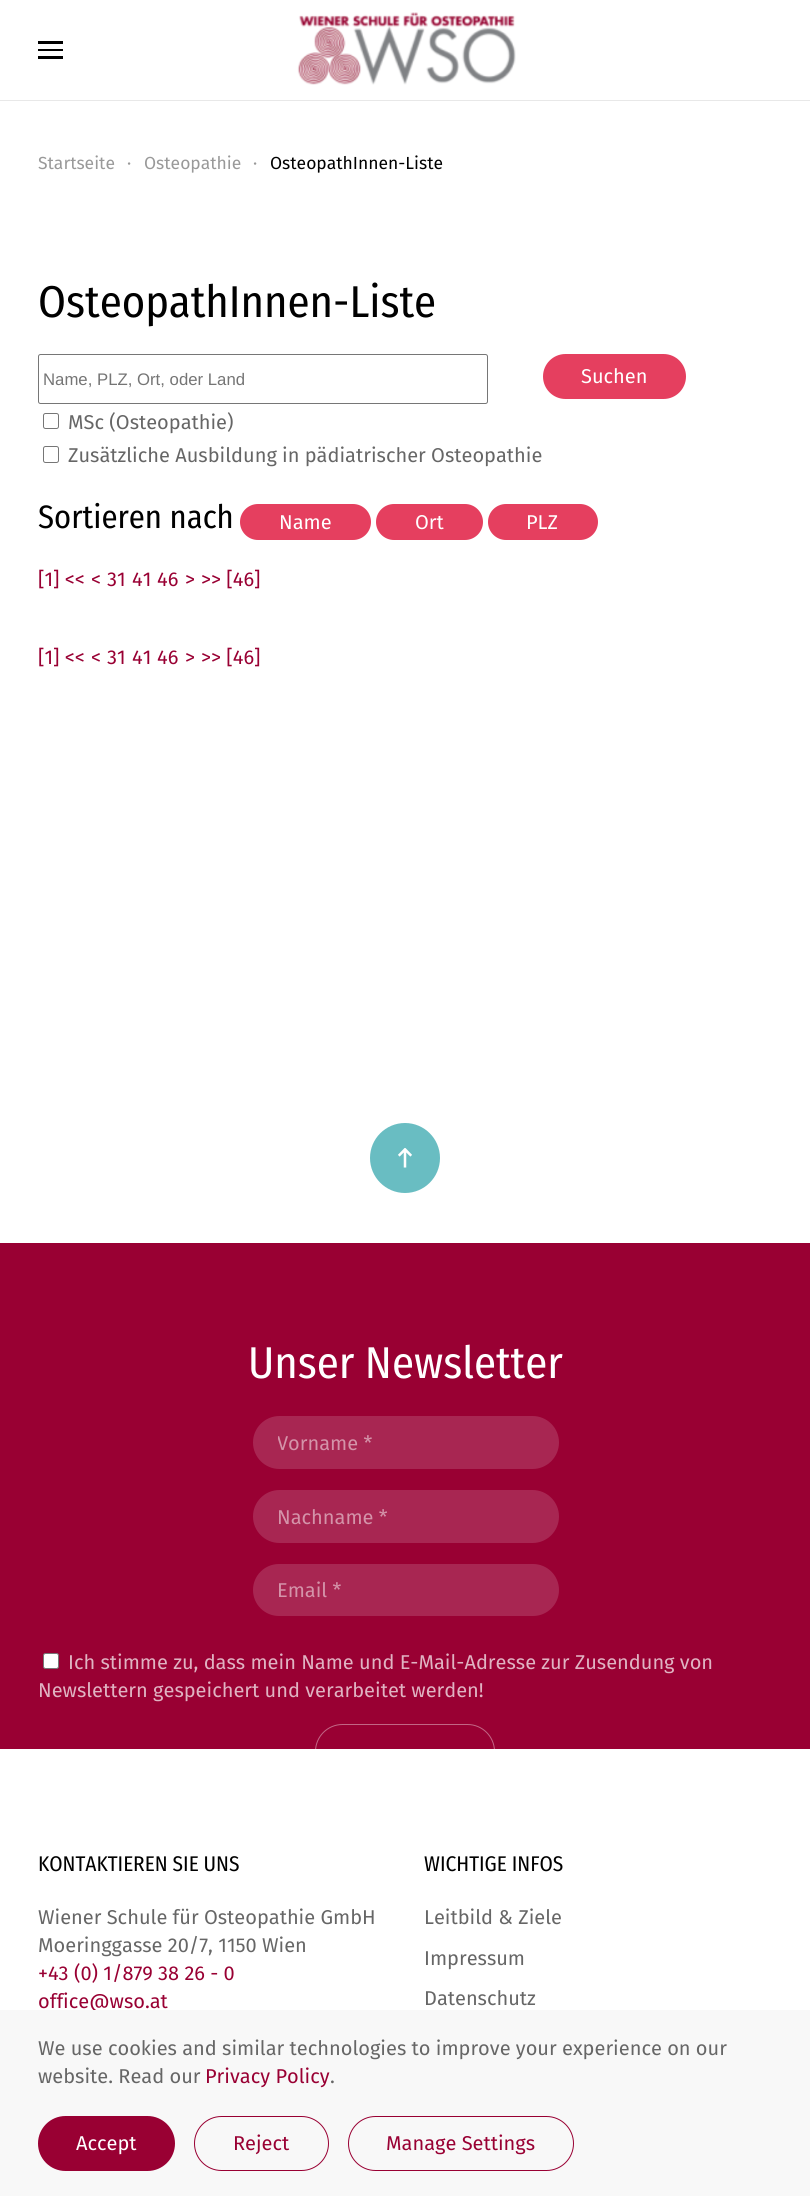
import math
import cairocffi as cairo

surface = cairo.ImageSurface(cairo.FORMAT_RGB24, 810, 2196)
ctx = cairo.Context(surface)
options = cairo.FontOptions()
options.set_hint_metrics(cairo.HINT_METRICS_OFF)
options.set_hint_style(cairo.HINT_STYLE_NONE)
ctx.set_font_options(options)
ctx.set_miter_limit(4)


def rgb(r, g, b):
    ctx.set_source_rgb(r / 255, g / 255, b / 255)


def face(family, size, italic, bold):
    ctx.select_font_face(family, cairo.FONT_SLANT_ITALIC if italic else cairo.FONT_SLANT_NORMAL, cairo.FONT_WEIGHT_BOLD if bold else cairo.FONT_WEIGHT_NORMAL)
    ctx.set_font_size(size)


def label(x, y, s):
    ctx.move_to(x, y)
    ctx.show_text(s)


def rect(x, y, w, h):
    ctx.rectangle(x, y, w, h)
    ctx.fill()


def rrect(x, y, w, h, r):
    ctx.new_sub_path()
    for i, (u, v) in enumerate([(x + w - r, y + h - r), (x + r, y + h - r), (x + r, y + r), (x + w - r, y + r)]):
        ctx.arc(u, v, r, i * math.pi / 2, (i + 1) * math.pi / 2)
    ctx.close_path()


def image(path, x, y, w, h):
    ctx.save()
    ctx.set_source_surface(cairo.ImageSurface.create_from_png(path), x, y)
    ctx.rectangle(x, y, w, h)
    ctx.fill()
    ctx.restore()


rgb(255, 255, 255)
ctx.paint()
rgb(232, 232, 232)
rect(0, 100, 810, 1)
rgb(0, 0, 0)
rect(38, 41, 25, 3)
rect(38, 49, 25, 2)
rect(38, 56, 25, 3)
image('image0.png', 297, 12, 219, 73)
face('Fira Sans', 17.5, 0, 0)
rgb(153, 153, 153)
label(38, 169, 'Startseite')
label(127, 169, '·')
label(144, 169, 'Osteopathie')
label(253, 169, '·')
rgb(0, 0, 0)
label(270, 169, 'OsteopathInnen-Liste')
face('Fira Sans Condensed', 44.6, 0, 0)
label(38, 317, 'OsteopathInnen-Liste')
rrect(38.5, 354.5, 449, 49, 2)
rgb(118, 118, 118)
ctx.set_line_width(1)
ctx.stroke()
face('Liberation Sans', 16.75, 0, 0)
rgb(117, 117, 117)
label(43, 385, 'Name, PLZ, Ort, oder Land')
rrect(43.5, 413.5, 15, 15, 2)
rgb(118, 118, 118)
ctx.stroke()
face('Fira Sans', 20, 0, 0)
rgb(102, 102, 102)
label(68, 429, 'MSc (Osteopathie)')
rrect(43.5, 446.5, 15, 16, 2)
rgb(118, 118, 118)
ctx.stroke()
rgb(102, 102, 102)
label(68, 462, 'Zusätzliche Ausbildung in pädiatrischer Osteopathie')
rgb(229, 63, 95)
rrect(543, 354, 143, 45, 22.5)
ctx.fill()
rgb(255, 255, 255)
label(581, 383, 'Suchen')
face('Fira Sans Condensed', 32.5, 0, 0)
rgb(0, 0, 0)
label(38, 528, 'Sortieren nach')
rgb(229, 63, 95)
rrect(240, 504, 131, 36, 18)
ctx.fill()
face('Fira Sans', 20, 0, 0)
rgb(255, 255, 255)
label(279, 529, 'Name')
rgb(229, 63, 95)
rrect(376, 504, 107, 36, 18)
ctx.fill()
rgb(255, 255, 255)
label(415, 529, 'Ort')
rgb(229, 63, 95)
rrect(488, 504, 110, 36, 18)
ctx.fill()
rgb(255, 255, 255)
label(526, 529, 'PLZ')
rgb(153, 0, 51)
label(38, 586, '[1] <<')
label(91, 586, '<')
label(107, 586, '31')
label(132, 586, '41')
label(157, 586, '46')
label(185, 586, '>')
label(201, 586, '>> [46]')
label(38, 664, '[1] <<')
label(91, 664, '<')
label(107, 664, '31')
label(132, 664, '41')
label(157, 664, '46')
label(185, 664, '>')
label(201, 664, '>> [46]')
rgb(105, 189, 194)
ctx.new_path()
ctx.arc(405, 1158, 35, 0, 2 * math.pi)
ctx.fill()
image('image1.png', 398, 1148, 14, 20)
rgb(153, 0, 51)
rect(0, 1243, 810, 506)
face('Fira Sans Condensed', 44.6, 0, 0)
rgb(255, 255, 255)
label(248, 1378, 'Unser Newsletter')
rgb(168, 38, 82)
rrect(253, 1416, 306, 53, 26.5)
ctx.fill()
ctx.save()
ctx.rectangle(278, 1431, 256, 24)
ctx.clip()
face('Fira Sans', 20, 0, 0)
rgb(212, 147, 169)
label(277, 1450, 'Vorname *')
ctx.restore()
rrect(253, 1490, 306, 53, 26.5)
ctx.fill()
face('Fira Sans', 20, 0, 0)
rgb(212, 147, 169)
label(277, 1524, 'Nachname *')
rgb(168, 38, 82)
rrect(253, 1564, 306, 52, 26)
ctx.fill()
rgb(212, 147, 169)
label(277, 1597, 'Email *')
rgb(255, 255, 255)
rrect(43.5, 1653.5, 15, 15, 2)
ctx.fill_preserve()
rgb(118, 118, 118)
ctx.stroke()
rgb(224, 179, 194)
label(68, 1669, 'Ich stimme zu, dass mein Name und E-Mail-Adresse zur Zusendung von')
label(38, 1697, 'Newslettern gespeichert und verarbeitet werden!')
rrect(315.5, 1724.5, 179, 54, 27)
ctx.set_source_rgba(1, 1, 1, 0.4)
ctx.stroke()
face('Fira Sans Condensed', 21.25, 0, 0)
rgb(0, 0, 0)
label(38, 1871, 'KONTAKTIEREN SIE UNS')
face('Fira Sans', 20, 0, 0)
rgb(102, 102, 102)
label(38, 1924, 'Wiener Schule für Osteopathie GmbH')
label(38, 1952, 'Moeringgasse 20/7, 1150 Wien')
rgb(153, 0, 51)
label(38, 1980, '+43 (0) 1/879 38 26 - 0')
label(38, 2008, 'office@wso.at')
face('Fira Sans Condensed', 21.25, 0, 0)
rgb(0, 0, 0)
label(424, 1871, 'WICHTIGE INFOS')
face('Fira Sans', 20, 0, 0)
rgb(102, 102, 102)
label(424, 1924, 'Leitbild & Ziele')
label(424, 1965, 'Impressum')
label(424, 2005, 'Datenschutz')
rgb(248, 248, 248)
rect(0, 2010, 810, 186)
rgb(102, 102, 102)
label(38, 2055, 'We use cookies and similar technologies to improve your experience on our')
label(38, 2083, 'website. Read our')
rgb(153, 0, 51)
label(205, 2083, 'Privacy Policy')
rgb(102, 102, 102)
label(330, 2083, '.')
rgb(153, 0, 51)
rrect(38, 2116, 137, 55, 27.5)
ctx.fill()
rgb(255, 255, 255)
label(76, 2150, 'Accept')
rrect(194.5, 2116.5, 134, 54, 27)
rgb(153, 0, 51)
ctx.stroke()
label(233, 2150, 'Reject')
rrect(348.5, 2116.5, 225, 54, 27)
ctx.stroke()
label(386, 2150, 'Manage Settings')
surface.write_to_png('render.png')
